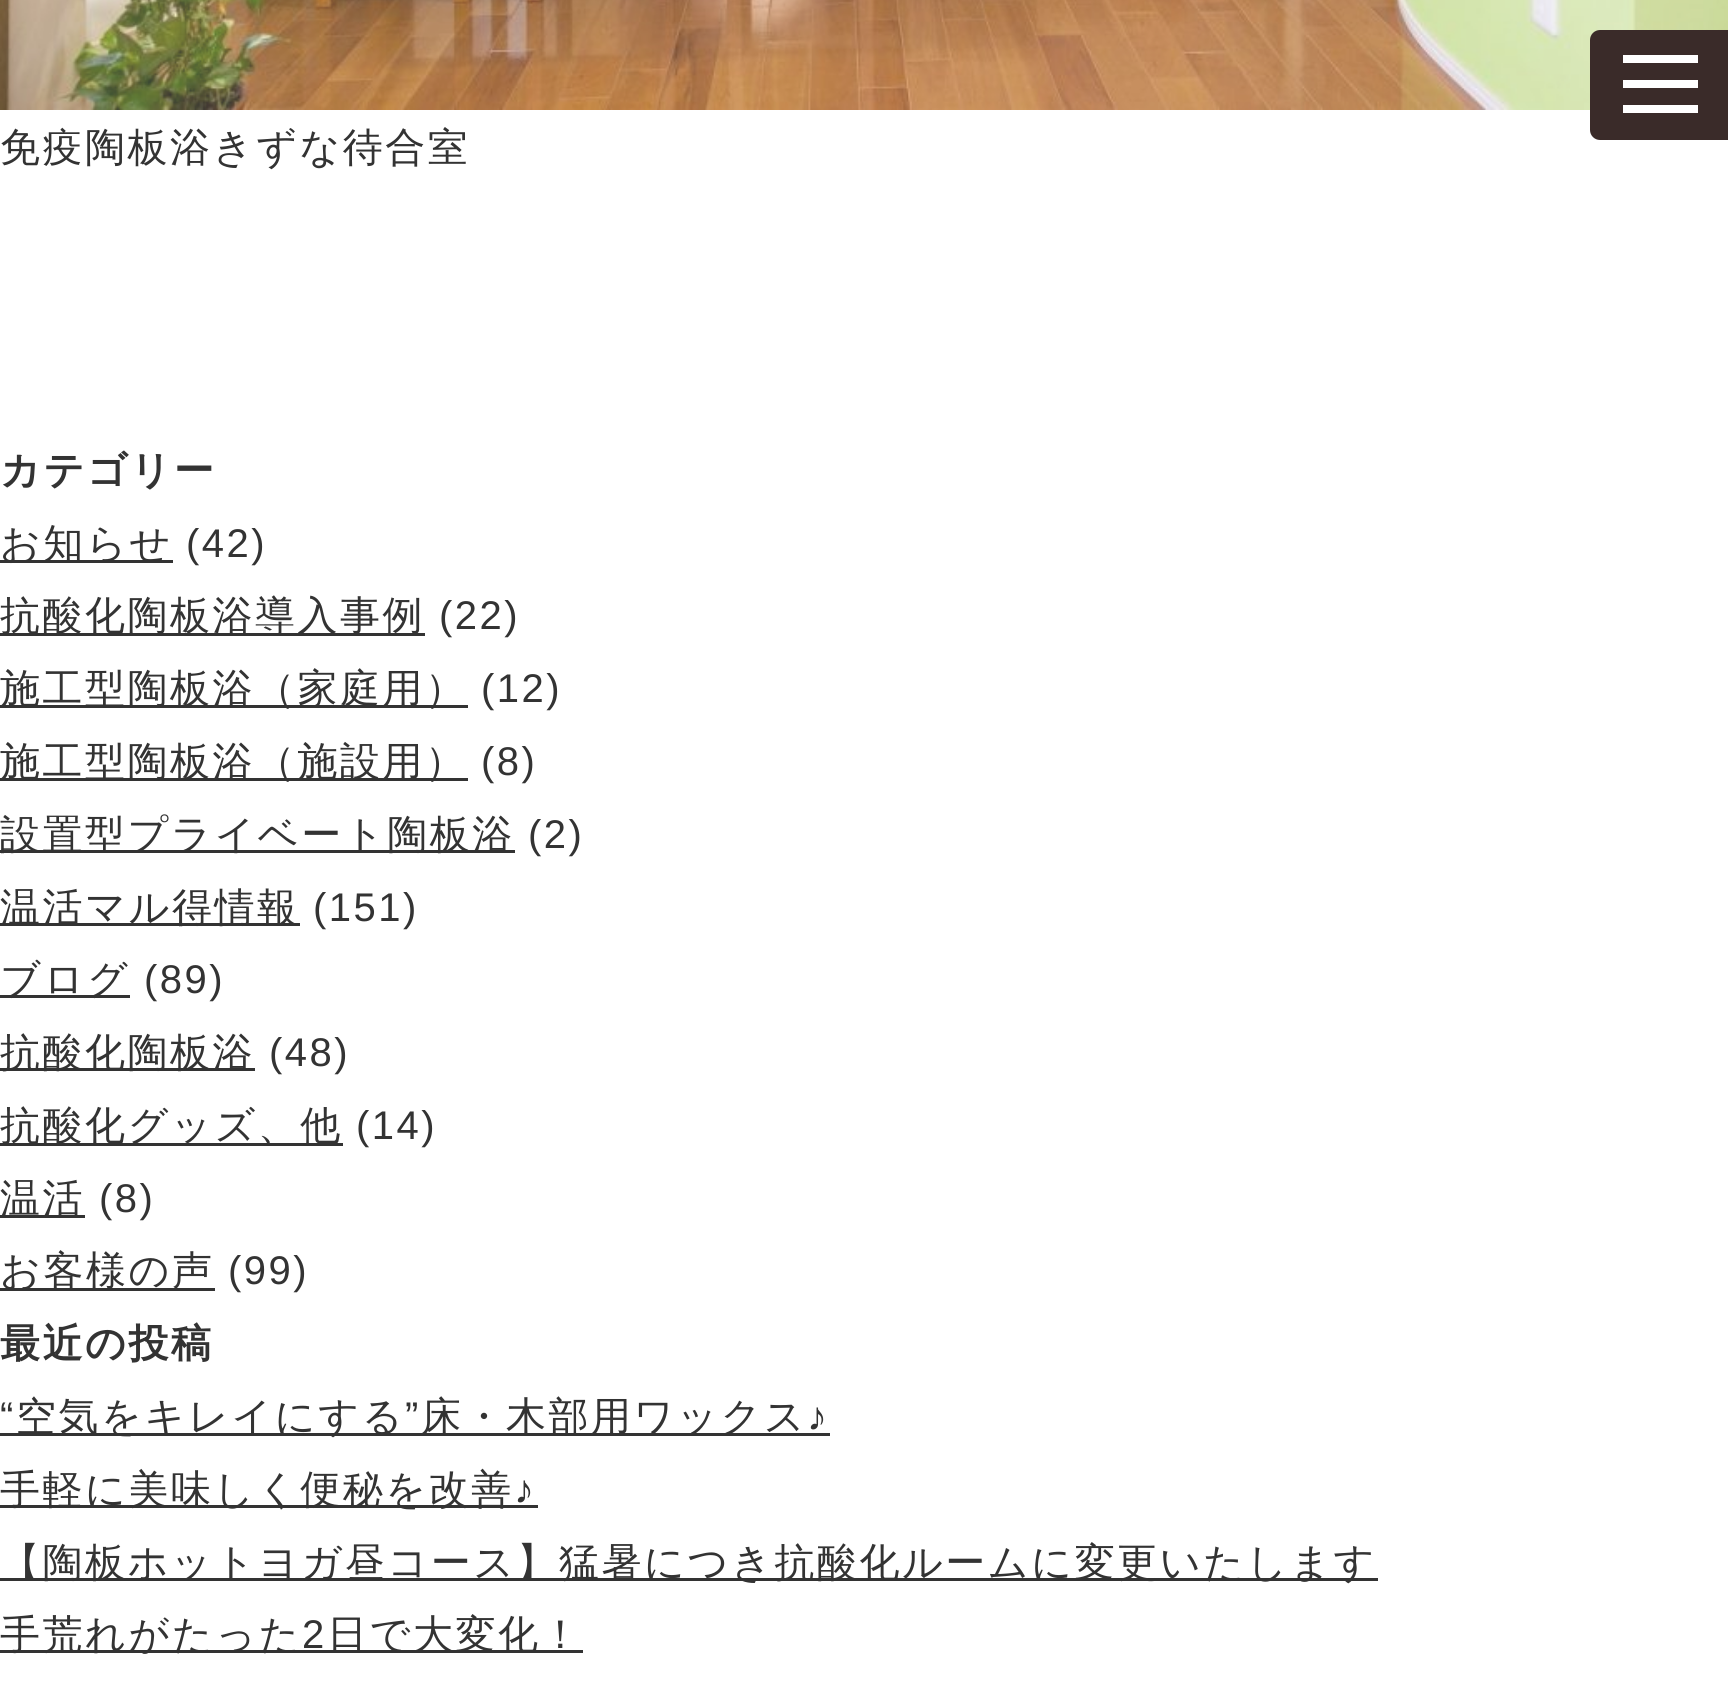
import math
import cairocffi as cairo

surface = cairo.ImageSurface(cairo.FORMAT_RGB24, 1728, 1691)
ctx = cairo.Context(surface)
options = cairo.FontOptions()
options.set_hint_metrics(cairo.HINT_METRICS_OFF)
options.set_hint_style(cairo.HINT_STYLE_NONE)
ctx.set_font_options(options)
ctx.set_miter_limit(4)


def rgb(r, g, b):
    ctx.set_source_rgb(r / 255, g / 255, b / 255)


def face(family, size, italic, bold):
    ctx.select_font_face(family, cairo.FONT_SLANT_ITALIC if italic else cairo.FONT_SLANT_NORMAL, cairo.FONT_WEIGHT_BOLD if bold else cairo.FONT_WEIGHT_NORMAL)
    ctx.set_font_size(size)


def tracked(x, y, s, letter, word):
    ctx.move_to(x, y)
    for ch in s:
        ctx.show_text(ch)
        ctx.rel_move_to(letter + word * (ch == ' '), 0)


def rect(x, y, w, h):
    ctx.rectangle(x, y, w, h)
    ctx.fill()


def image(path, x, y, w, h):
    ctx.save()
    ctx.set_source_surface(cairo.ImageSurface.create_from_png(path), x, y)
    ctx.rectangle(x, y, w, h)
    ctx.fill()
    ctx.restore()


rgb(255, 255, 255)
ctx.paint()
image('image0.png', 0, 0, 1728, 110)
rgb(58, 43, 41)
ctx.new_path()
ctx.move_to(1600, 30)
ctx.line_to(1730, 30)
ctx.line_to(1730, 140)
ctx.line_to(1600, 140)
ctx.curve_to(1594.5, 140, 1590, 135.5, 1590, 130)
ctx.line_to(1590, 40)
ctx.curve_to(1590, 34.5, 1594.5, 30, 1600, 30)
ctx.close_path()
ctx.fill()
rgb(255, 255, 255)
rect(1623, 55, 75, 8)
rect(1623, 80, 75, 8)
rect(1623, 105, 75, 8)
face('WenQuanYi Zen Hei Medium', 40, 0, 0)
rgb(51, 51, 51)
tracked(0, 161, '免疫陶板浴きずな待合室', 2.5, 0)
face('WenQuanYi Zen Hei', 40, 0, 1)
tracked(0, 484, 'カテゴリー', 2.5, 0)
rect(0, 560, 173, 3)
face('WenQuanYi Zen Hei Medium', 40, 0, 0)
tracked(0, 557, 'お知らせ', 2.5, 0)
face('Liberation Sans', 40, 0, 0)
tracked(186, 557, '(42)', 2.5, 0)
rect(0, 633, 425, 3)
face('WenQuanYi Zen Hei Medium', 40, 0, 0)
tracked(0, 629, '抗酸化陶板浴導入事例', 2.5, 0)
face('Liberation Sans', 40, 0, 0)
tracked(439, 629, '(22)', 2.5, 0)
rect(0, 705, 468, 3)
face('WenQuanYi Zen Hei Medium', 40, 0, 0)
tracked(0, 702, '施工型陶板浴（家庭用）', 2.5, 0)
face('Liberation Sans', 40, 0, 0)
tracked(481, 702, '(12)', 2.5, 0)
rect(0, 778, 468, 3)
face('WenQuanYi Zen Hei Medium', 40, 0, 0)
tracked(0, 775, '施工型陶板浴（施設用）', 2.5, 0)
face('Liberation Sans', 40, 0, 0)
tracked(481, 775, '(8)', 2.5, 0)
rect(0, 850, 515, 3)
face('WenQuanYi Zen Hei Medium', 40, 0, 0)
tracked(0, 848, '設置型プライベート陶板浴', 2.5, 0)
face('Liberation Sans', 40, 0, 0)
tracked(528, 848, '(2)', 2.5, 0)
rect(0, 923, 300, 3)
face('WenQuanYi Zen Hei Medium', 40, 0, 0)
tracked(0, 921, '温活マル得情報', 2.5, 0)
face('Liberation Sans', 40, 0, 0)
tracked(313, 921, '(151)', 2.5, 0)
rect(0, 995, 130, 3)
face('WenQuanYi Zen Hei Medium', 40, 0, 0)
tracked(0, 993, 'ブログ', 2.5, 0)
face('Liberation Sans', 40, 0, 0)
tracked(144, 993, '(89)', 2.5, 0)
rect(0, 1068, 255, 3)
face('WenQuanYi Zen Hei Medium', 40, 0, 0)
tracked(0, 1066, '抗酸化陶板浴', 2.5, 0)
face('Liberation Sans', 40, 0, 0)
tracked(269, 1066, '(48)', 2.5, 0)
rect(0, 1143, 343, 3)
face('WenQuanYi Zen Hei Medium', 40, 0, 0)
tracked(0, 1139, '抗酸化グッズ、他', 2.5, 0)
face('Liberation Sans', 40, 0, 0)
tracked(356, 1139, '(14)', 2.5, 0)
rect(0, 1215, 85, 3)
face('WenQuanYi Zen Hei Medium', 40, 0, 0)
tracked(0, 1212, '温活', 2.5, 0)
face('Liberation Sans', 40, 0, 0)
tracked(99, 1212, '(8)', 2.5, 0)
rect(0, 1288, 215, 3)
face('WenQuanYi Zen Hei Medium', 40, 0, 0)
tracked(0, 1284, 'お客様の声', 2.5, 0)
face('Liberation Sans', 40, 0, 0)
tracked(228, 1284, '(99)', 2.5, 0)
face('WenQuanYi Zen Hei', 40, 0, 1)
tracked(0, 1357, '最近の投稿', 2.5, 0)
face('Liberation Sans', 40, 0, 0)
tracked(0, 1430, '“', 2.5, 0)
rect(0, 1433, 830, 3)
face('WenQuanYi Zen Hei Medium', 40, 0, 0)
tracked(16, 1430, '空気をキレイにする', 2.5, 0)
face('Liberation Sans', 40, 0, 0)
tracked(405, 1430, '”', 2.5, 0)
face('WenQuanYi Zen Hei Medium', 40, 0, 0)
tracked(421, 1430, '床・木部用ワックス', 2.5, 0)
face('Liberation Sans', 40, 0, 0)
tracked(807, 1430, '♪', 2.5, 0)
rect(0, 1505, 538, 3)
face('WenQuanYi Zen Hei Medium', 40, 0, 0)
tracked(0, 1503, '手軽に美味しく便秘を改善', 2.5, 0)
face('Liberation Sans', 40, 0, 0)
tracked(514, 1503, '♪', 2.5, 0)
rect(0, 1578, 1378, 3)
face('WenQuanYi Zen Hei Medium', 40, 0, 0)
tracked(0, 1576, '【陶板ホットヨガ昼コース】猛暑につき抗酸化ルームに変更いたします', 2.5, 0)
rect(0, 1650, 583, 3)
tracked(0, 1648, '手荒れがたった', 2.5, 0)
face('Liberation Sans', 40, 0, 0)
tracked(302, 1648, '2', 2.5, 0)
face('WenQuanYi Zen Hei Medium', 40, 0, 0)
tracked(327, 1648, '日で大変化！', 2.5, 0)
surface.write_to_png('render.png')
